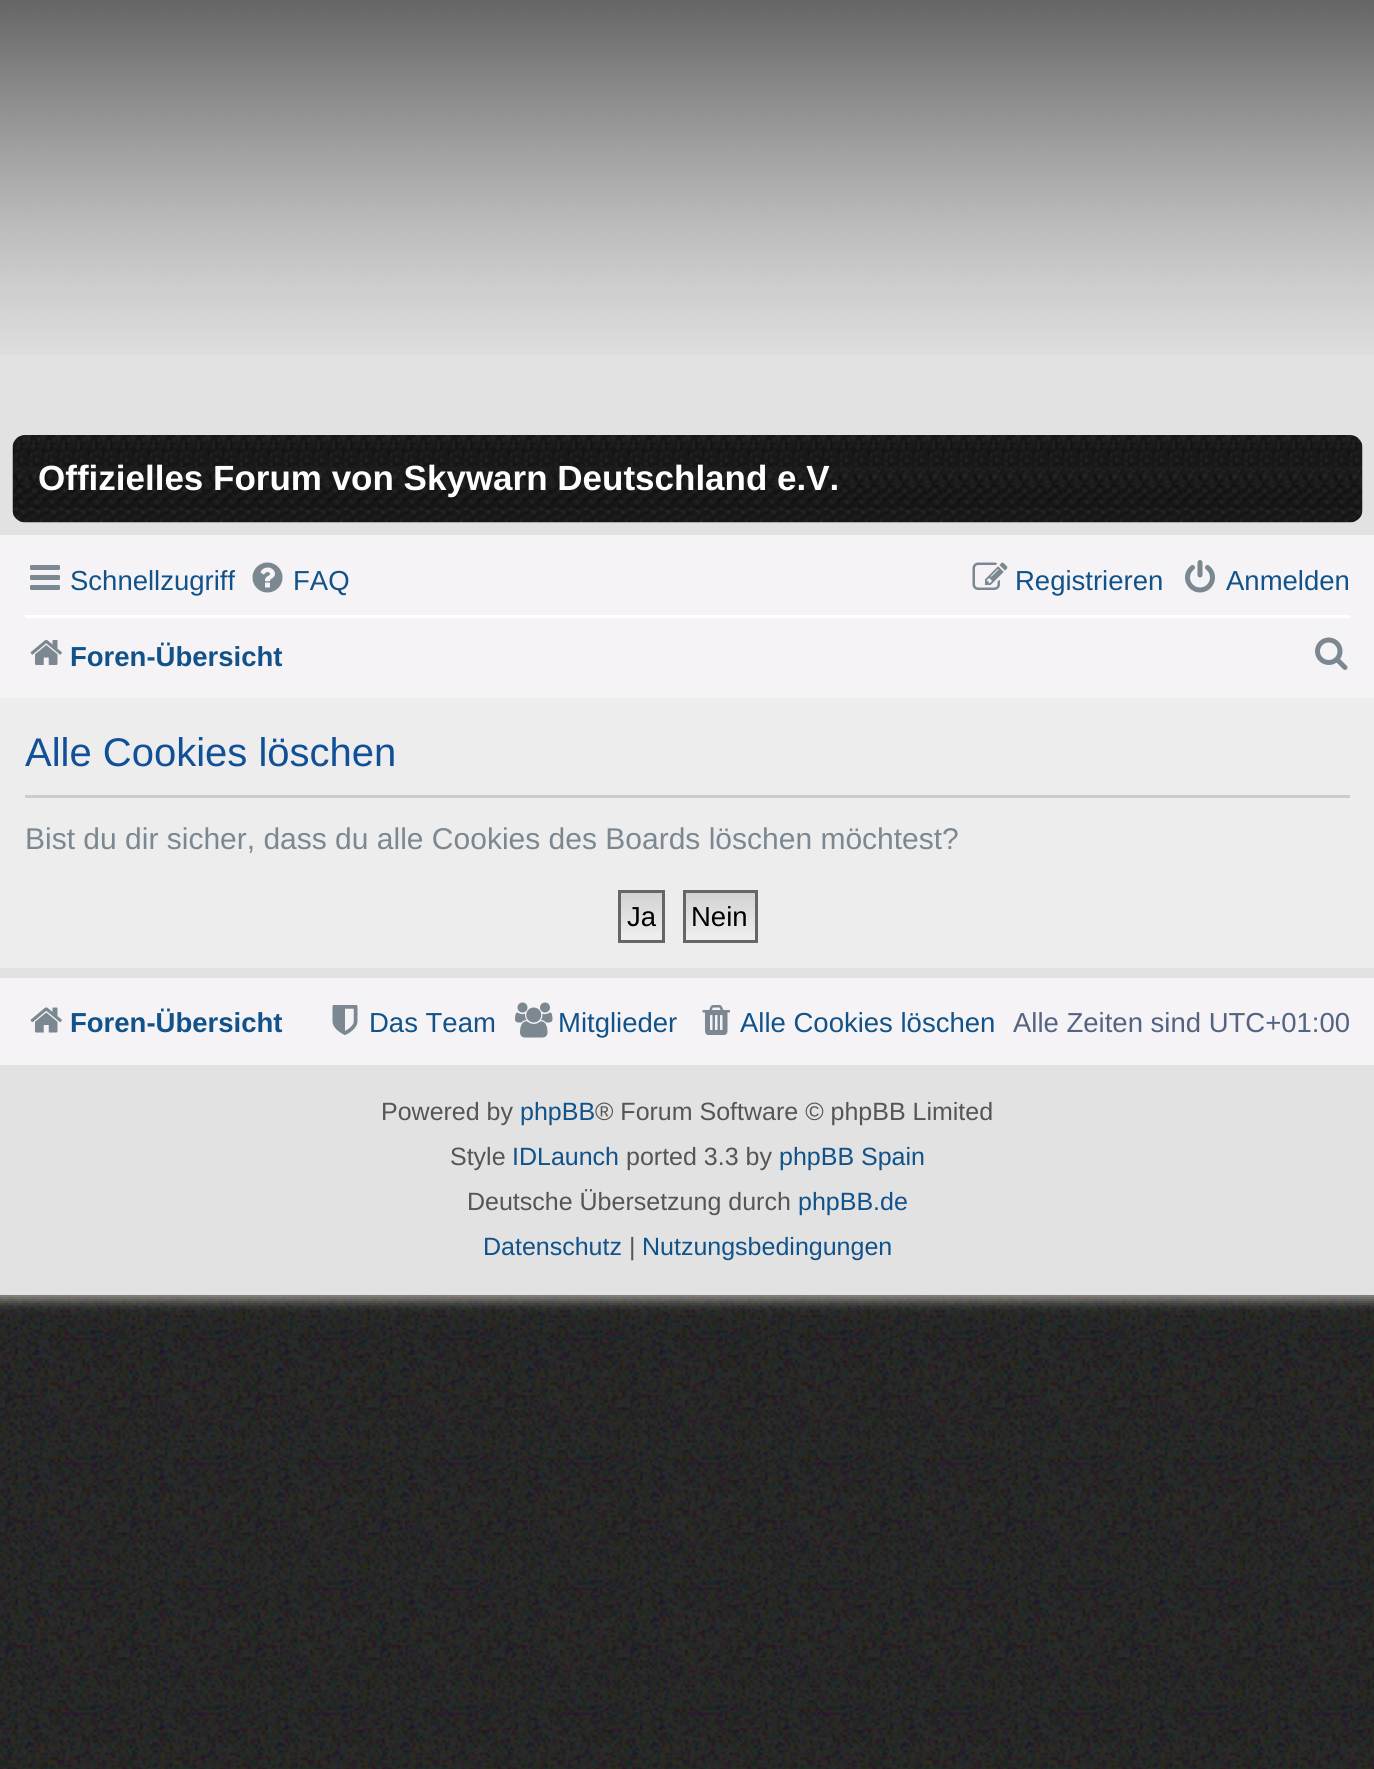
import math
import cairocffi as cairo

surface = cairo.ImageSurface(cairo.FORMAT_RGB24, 1374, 1769)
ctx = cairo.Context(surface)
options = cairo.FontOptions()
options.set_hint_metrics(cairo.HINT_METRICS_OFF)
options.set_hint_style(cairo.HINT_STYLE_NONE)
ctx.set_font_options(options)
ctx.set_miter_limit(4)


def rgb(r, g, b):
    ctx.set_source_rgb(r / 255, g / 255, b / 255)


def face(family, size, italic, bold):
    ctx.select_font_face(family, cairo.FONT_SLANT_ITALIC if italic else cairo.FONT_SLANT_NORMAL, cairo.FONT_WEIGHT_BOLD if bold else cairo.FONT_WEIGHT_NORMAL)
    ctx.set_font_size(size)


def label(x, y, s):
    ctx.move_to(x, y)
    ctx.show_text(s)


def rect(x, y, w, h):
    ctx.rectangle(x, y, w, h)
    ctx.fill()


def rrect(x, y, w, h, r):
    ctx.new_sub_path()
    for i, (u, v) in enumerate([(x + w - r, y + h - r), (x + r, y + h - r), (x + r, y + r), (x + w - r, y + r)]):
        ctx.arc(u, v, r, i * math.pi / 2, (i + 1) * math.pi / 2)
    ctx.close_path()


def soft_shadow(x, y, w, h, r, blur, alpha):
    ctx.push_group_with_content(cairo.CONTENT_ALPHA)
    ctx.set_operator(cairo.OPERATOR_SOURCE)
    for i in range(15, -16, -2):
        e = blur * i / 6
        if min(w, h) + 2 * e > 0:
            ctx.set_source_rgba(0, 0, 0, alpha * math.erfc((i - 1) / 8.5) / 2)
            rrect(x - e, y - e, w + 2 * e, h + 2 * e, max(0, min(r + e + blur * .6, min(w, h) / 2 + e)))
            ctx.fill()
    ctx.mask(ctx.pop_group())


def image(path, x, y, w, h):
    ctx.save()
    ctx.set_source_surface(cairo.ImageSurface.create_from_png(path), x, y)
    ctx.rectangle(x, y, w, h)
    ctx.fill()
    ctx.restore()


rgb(0, 0, 0)
ctx.paint()
image('image0.png', 0, 1295, 1374, 474)
image('image1.png', 0, 1295, 1374, 474)
rgb(157, 154, 147)
soft_shadow(-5, -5, 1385, 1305, 0, 6, 1)
rgb(226, 226, 226)
rect(0, 355, 1374, 940)
image('image2.png', 0, 0, 1374, 355)
image('image3.png', 12, 435, 1351, 88)
face('Liberation Sans', 35, 0, 1)
rgb(255, 255, 255)
label(38, 490, 'Offizielles Forum von Skywarn Deutschland e.V.')
rgb(245, 243, 245)
rect(0, 535, 1374, 163)
image('image4.png', 30, 565, 30, 25)
face('Liberation Sans', 27.5, 0, 0)
rgb(16, 82, 137)
label(70, 590, 'Schnellzugriff')
image('image5.png', 252, 562, 31, 31)
label(293, 590, 'FAQ')
image('image6.png', 972, 562, 36, 28)
label(1015, 590, 'Registrieren')
image('image7.png', 1185, 560, 30, 33)
label(1226, 590, 'Anmelden')
rgb(255, 255, 255)
rect(25, 615, 1325, 3)
image('image8.png', 30, 640, 32, 25)
face('Liberation Sans', 27.5, 0, 1)
rgb(16, 82, 137)
label(70, 666, 'Foren-Übersicht')
image('image9.png', 1315, 637, 33, 33)
rgb(237, 237, 237)
rect(0, 698, 1374, 270)
rgb(204, 204, 204)
rect(25, 795, 1325, 3)
face('Liberation Sans', 40, 0, 0)
rgb(17, 80, 152)
label(25, 766, 'Alle Cookies löschen')
face('Liberation Sans', 30, 0, 0)
rgb(124, 136, 145)
label(25, 849, 'Bist du dir sicher, dass du alle Cookies des Boards löschen möchtest?')
gradient = cairo.LinearGradient(641, 893, 641, 940)
gradient.add_color_stop_rgba(0, 0.824, 0.824, 0.824, 1)
gradient.add_color_stop_rgba(1, 0.937, 0.937, 0.937, 1)
ctx.set_source(gradient)
rect(621, 893, 41, 40)
ctx.rectangle(619.5, 891.5, 44, 50)
rgb(102, 102, 102)
ctx.set_line_width(3)
ctx.stroke()
face('Liberation Sans', 27.5, 0, 0)
rgb(0, 0, 0)
label(627, 926, 'Ja')
gradient = cairo.LinearGradient(720, 893, 720, 940)
gradient.add_color_stop_rgba(0, 0.824, 0.824, 0.824, 1)
gradient.add_color_stop_rgba(1, 0.937, 0.937, 0.937, 1)
ctx.set_source(gradient)
rect(686, 893, 69, 40)
ctx.rectangle(684.5, 891.5, 72, 50)
rgb(102, 102, 102)
ctx.stroke()
rgb(0, 0, 0)
label(691, 926, 'Nein')
rgb(245, 243, 245)
rect(0, 978, 1374, 87)
image('image10.png', 30, 1007, 32, 26)
face('Liberation Sans', 27.5, 0, 1)
rgb(16, 82, 137)
label(70, 1032, 'Foren-Übersicht')
image('image11.png', 332, 1005, 26, 30)
face('Liberation Sans', 27.5, 0, 0)
label(369, 1032, 'Das Team')
image('image12.png', 515, 1002, 38, 36)
label(558, 1032, 'Mitglieder')
image('image13.png', 702, 1005, 28, 30)
label(740, 1032, 'Alle Cookies löschen')
rgb(83, 100, 130)
label(1013, 1032, 'Alle Zeiten sind UTC+01:00')
face('Liberation Sans', 25, 0, 0)
rgb(85, 85, 85)
label(381, 1120, 'Powered by')
rgb(16, 82, 137)
label(520, 1120, 'phpBB')
rgb(85, 85, 85)
label(595, 1120, '® Forum Software © phpBB Limited')
label(450, 1165, 'Style')
rgb(16, 82, 137)
label(512, 1165, 'IDLaunch')
rgb(85, 85, 85)
label(626, 1165, 'ported 3.3 by')
rgb(16, 82, 137)
label(779, 1165, 'phpBB Spain')
rgb(85, 85, 85)
label(467, 1210, 'Deutsche Übersetzung durch')
rgb(16, 82, 137)
label(798, 1210, 'phpBB.de')
label(483, 1255, 'Datenschutz')
rgb(85, 85, 85)
label(629, 1255, '|')
rgb(16, 82, 137)
label(642, 1255, 'Nutzungsbedingungen')
surface.write_to_png('render.png')
